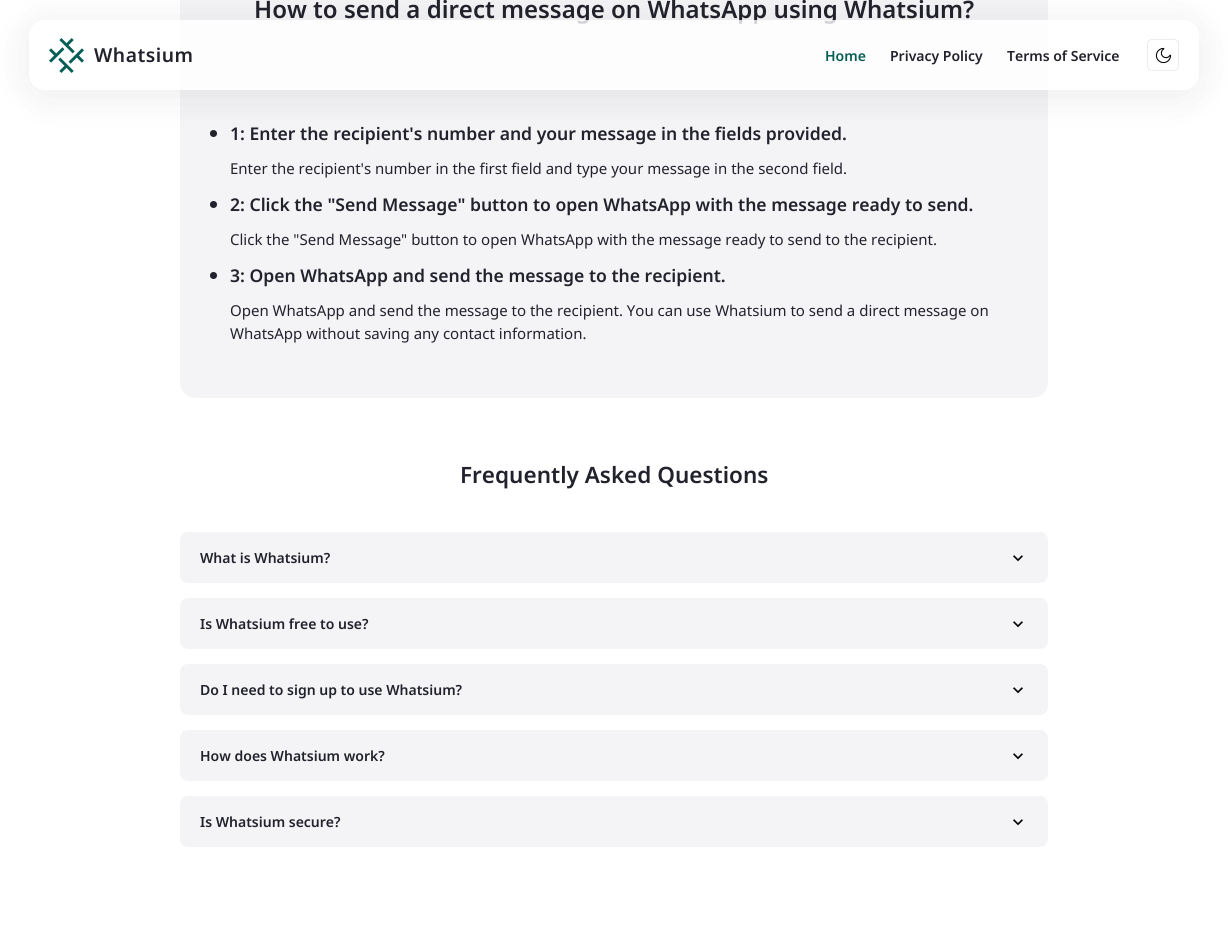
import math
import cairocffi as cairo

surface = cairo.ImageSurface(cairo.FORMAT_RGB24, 1228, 949)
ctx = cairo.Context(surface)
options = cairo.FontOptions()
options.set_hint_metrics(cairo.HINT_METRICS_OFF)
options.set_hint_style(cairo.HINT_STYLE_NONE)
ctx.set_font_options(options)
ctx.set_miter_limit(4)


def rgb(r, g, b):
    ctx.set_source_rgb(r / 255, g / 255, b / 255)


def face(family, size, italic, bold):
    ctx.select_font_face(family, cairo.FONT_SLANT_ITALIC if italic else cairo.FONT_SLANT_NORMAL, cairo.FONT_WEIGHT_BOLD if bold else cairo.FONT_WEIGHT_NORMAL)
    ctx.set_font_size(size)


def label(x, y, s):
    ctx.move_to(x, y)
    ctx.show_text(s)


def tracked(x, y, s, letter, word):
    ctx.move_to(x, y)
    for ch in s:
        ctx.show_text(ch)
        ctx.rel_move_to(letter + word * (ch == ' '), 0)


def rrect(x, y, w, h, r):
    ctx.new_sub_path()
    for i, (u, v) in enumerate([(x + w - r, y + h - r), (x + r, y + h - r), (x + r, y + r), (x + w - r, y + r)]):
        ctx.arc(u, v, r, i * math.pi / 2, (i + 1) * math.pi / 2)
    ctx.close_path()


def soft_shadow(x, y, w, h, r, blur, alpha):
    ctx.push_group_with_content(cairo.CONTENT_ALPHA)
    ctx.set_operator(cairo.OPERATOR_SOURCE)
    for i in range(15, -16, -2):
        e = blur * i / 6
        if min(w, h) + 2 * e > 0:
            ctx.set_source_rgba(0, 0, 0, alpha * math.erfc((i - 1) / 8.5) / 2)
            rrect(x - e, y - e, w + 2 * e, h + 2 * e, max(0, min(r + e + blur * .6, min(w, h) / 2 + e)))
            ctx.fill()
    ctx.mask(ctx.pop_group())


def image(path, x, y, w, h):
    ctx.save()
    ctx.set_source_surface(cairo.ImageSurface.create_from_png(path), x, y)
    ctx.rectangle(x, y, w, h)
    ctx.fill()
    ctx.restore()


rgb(255, 255, 255)
ctx.paint()
rgb(244, 244, 246)
rrect(180, -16, 868, 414, 16)
ctx.fill()
face('Noto Sans SemiBold', 24, 0, 0)
rgb(33, 34, 44)
label(254, 18, 'How to send a direct message on WhatsApp using Whatsium?')
ctx.new_path()
ctx.arc(213.5, 133.5, 3.5, 0, 2 * math.pi)
ctx.fill()
face('Noto Sans SemiBold', 17.55, 0, 0)
label(230, 140, '1: Enter the recipient\'s number and your message in the fields provided.')
face('Noto Sans', 15, 0, 0)
label(230, 174, 'Enter the recipient\'s number in the first field and type your message in the second field.')
ctx.new_path()
ctx.arc(213.5, 204.5, 3.5, 0, 2 * math.pi)
ctx.fill()
face('Noto Sans SemiBold', 17.55, 0, 0)
label(230, 211, '2: Click the "Send Message" button to open WhatsApp with the message ready to send.')
face('Noto Sans', 15, 0, 0)
label(230, 245, 'Click the "Send Message" button to open WhatsApp with the message ready to send to the recipient.')
ctx.new_path()
ctx.arc(213.5, 275.5, 3.5, 0, 2 * math.pi)
ctx.fill()
face('Noto Sans SemiBold', 17.55, 0, 0)
label(230, 282, '3: Open WhatsApp and send the message to the recipient.')
face('Noto Sans', 15, 0, 0)
label(230, 316, 'Open WhatsApp and send the message to the recipient. You can use Whatsium to send a direct message on')
label(230, 339, 'WhatsApp without saving any contact information.')
ctx.save()
ctx.set_fill_rule(cairo.FILL_RULE_EVEN_ODD)
ctx.new_path()
ctx.move_to(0, 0)
ctx.line_to(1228, 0)
ctx.line_to(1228, 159)
ctx.line_to(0, 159)
ctx.close_path()
ctx.move_to(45, 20)
ctx.line_to(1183, 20)
ctx.curve_to(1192, 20, 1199, 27, 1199, 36)
ctx.line_to(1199, 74)
ctx.curve_to(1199, 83, 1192, 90, 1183, 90)
ctx.line_to(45, 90)
ctx.curve_to(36, 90, 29, 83, 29, 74)
ctx.line_to(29, 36)
ctx.curve_to(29, 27, 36, 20, 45, 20)
ctx.close_path()
ctx.clip()
rgb(0, 0, 0)
soft_shadow(29, 25, 1170, 70, 16, 21, 0.08)
ctx.restore()
ctx.set_source_rgba(1, 1, 1, 0.8)
rrect(29, 20, 1170, 70, 16)
ctx.fill()
image('image0.png', 49, 38, 35, 35)
face('Noto Sans SemiBold', 19.25, 0, 0)
rgb(33, 34, 44)
tracked(94, 62, 'Whatsium', 0.5, 0)
face('Noto Sans SemiBold', 14, 0, 0)
rgb(4, 94, 84)
label(825, 61, 'Home')
rgb(33, 34, 44)
label(890, 61, 'Privacy Policy')
label(1007, 61, 'Terms of Service')
image('image1.png', 1155, 47, 17, 17)
rrect(1147.5, 39.5, 31, 31, 4.5)
rgb(235, 235, 240)
ctx.set_line_width(1)
ctx.stroke()
face('Noto Sans SemiBold', 22.5, 0, 0)
rgb(33, 34, 44)
label(460, 483, 'Frequently Asked Questions')
rgb(244, 244, 246)
rrect(180, 532, 868, 51, 8)
ctx.fill()
face('Noto Sans SemiBold', 14, 0, 0)
rgb(33, 34, 44)
label(200, 563, 'What is Whatsium?')
image('image2.png', 1013, 555, 10, 7)
rgb(244, 244, 246)
rrect(180, 598, 868, 51, 8)
ctx.fill()
rgb(33, 34, 44)
label(200, 629, 'Is Whatsium free to use?')
image('image2.png', 1013, 621, 10, 7)
rgb(244, 244, 246)
rrect(180, 664, 868, 51, 8)
ctx.fill()
rgb(33, 34, 44)
label(200, 695, 'Do I need to sign up to use Whatsium?')
image('image2.png', 1013, 687, 10, 7)
rgb(244, 244, 246)
rrect(180, 730, 868, 51, 8)
ctx.fill()
rgb(33, 34, 44)
label(200, 761, 'How does Whatsium work?')
image('image2.png', 1013, 753, 10, 7)
rgb(244, 244, 246)
rrect(180, 796, 868, 51, 8)
ctx.fill()
rgb(33, 34, 44)
label(200, 827, 'Is Whatsium secure?')
image('image2.png', 1013, 819, 10, 7)
surface.write_to_png('render.png')
